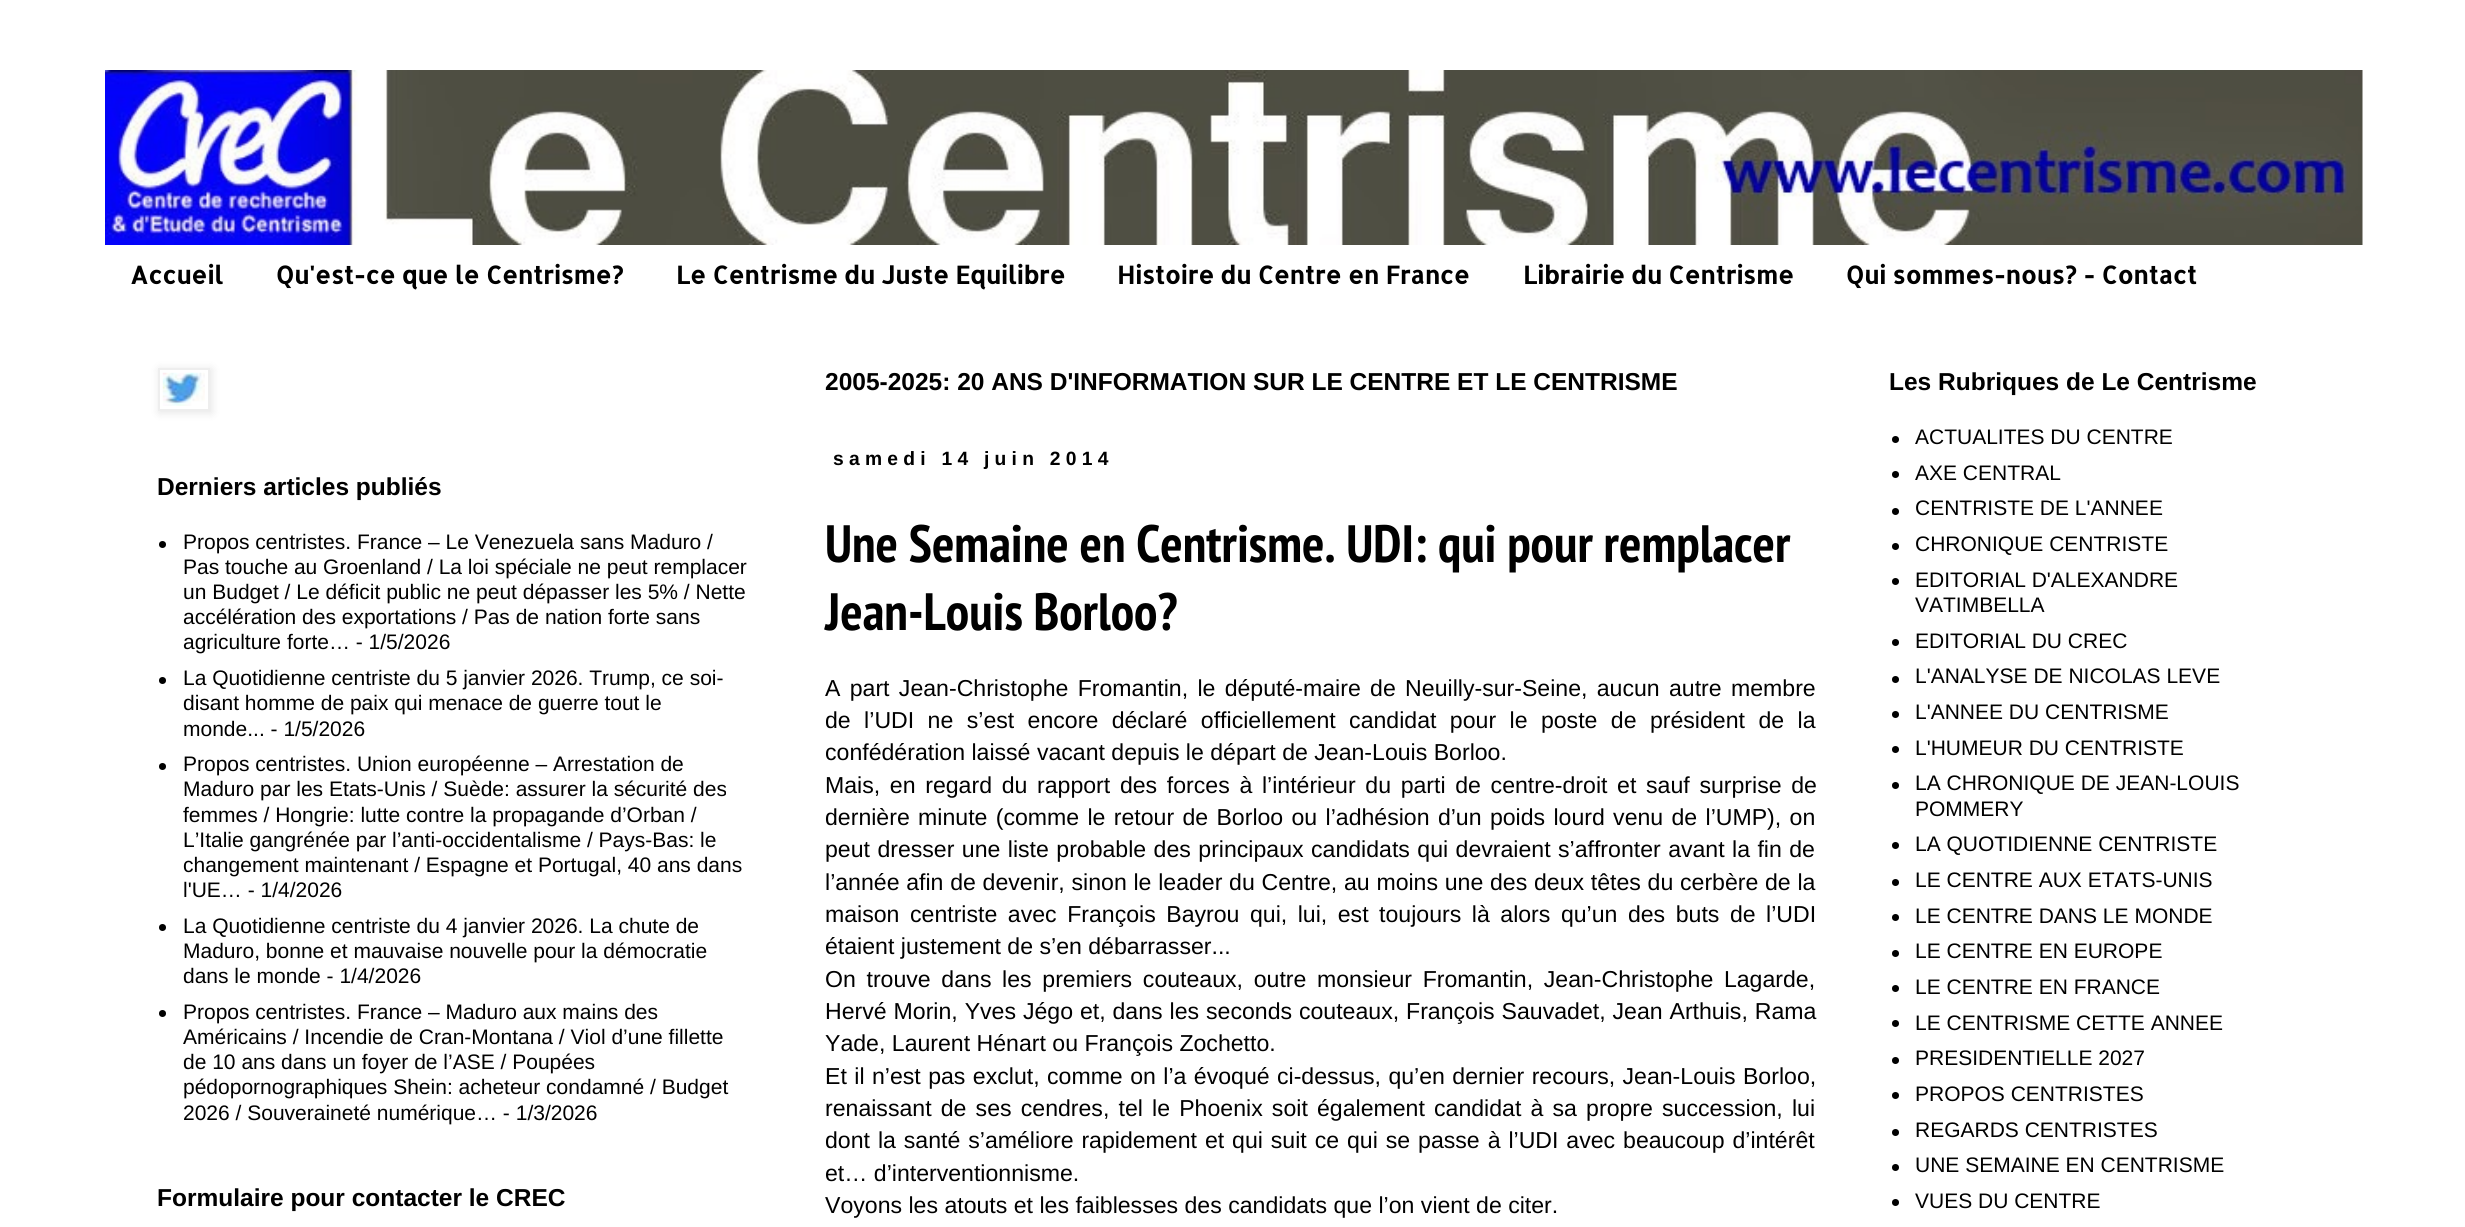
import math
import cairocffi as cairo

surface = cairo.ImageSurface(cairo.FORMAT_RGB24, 2465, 1227)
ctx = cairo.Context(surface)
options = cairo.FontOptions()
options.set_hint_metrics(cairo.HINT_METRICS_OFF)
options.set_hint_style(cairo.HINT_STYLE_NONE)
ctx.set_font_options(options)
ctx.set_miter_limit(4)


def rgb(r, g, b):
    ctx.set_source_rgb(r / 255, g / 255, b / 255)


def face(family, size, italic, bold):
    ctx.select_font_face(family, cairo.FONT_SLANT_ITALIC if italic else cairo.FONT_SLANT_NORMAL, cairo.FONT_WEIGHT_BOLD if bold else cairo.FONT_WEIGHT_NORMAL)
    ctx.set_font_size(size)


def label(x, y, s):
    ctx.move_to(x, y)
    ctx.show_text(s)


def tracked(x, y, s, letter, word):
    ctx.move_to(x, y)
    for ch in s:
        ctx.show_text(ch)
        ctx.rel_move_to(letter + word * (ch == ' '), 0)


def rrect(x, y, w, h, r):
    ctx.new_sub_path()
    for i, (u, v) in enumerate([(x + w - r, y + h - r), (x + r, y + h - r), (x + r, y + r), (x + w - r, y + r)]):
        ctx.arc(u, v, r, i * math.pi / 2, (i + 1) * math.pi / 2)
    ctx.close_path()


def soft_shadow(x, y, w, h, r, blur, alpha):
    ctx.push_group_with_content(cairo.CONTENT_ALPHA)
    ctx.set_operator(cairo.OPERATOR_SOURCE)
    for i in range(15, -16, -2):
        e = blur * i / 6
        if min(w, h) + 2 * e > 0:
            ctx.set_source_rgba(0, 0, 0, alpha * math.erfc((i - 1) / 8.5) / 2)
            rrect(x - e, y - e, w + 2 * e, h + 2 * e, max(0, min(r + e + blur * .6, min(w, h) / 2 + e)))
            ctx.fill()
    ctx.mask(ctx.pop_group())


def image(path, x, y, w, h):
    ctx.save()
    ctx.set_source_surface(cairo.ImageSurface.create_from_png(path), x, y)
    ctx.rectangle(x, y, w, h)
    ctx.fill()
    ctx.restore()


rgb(255, 255, 255)
ctx.paint()
image('image0.png', 105, 70, 2258, 175)
face('Allerta', 24.5, 0, 1)
rgb(0, 0, 0)
label(130, 284, 'Accueil')
label(276, 284, 'Qu\'est-ce que le Centrisme?')
label(676, 284, 'Le Centrisme du Juste Equilibre')
label(1117, 284, 'Histoire du Centre en France')
label(1523, 284, 'Librairie du Centrisme')
label(1846, 284, 'Qui sommes-nous? - Contact')
ctx.save()
ctx.set_fill_rule(cairo.FILL_RULE_EVEN_ODD)
ctx.new_path()
ctx.move_to(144, 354)
ctx.line_to(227, 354)
ctx.line_to(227, 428)
ctx.line_to(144, 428)
ctx.close_path()
ctx.move_to(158, 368)
ctx.line_to(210, 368)
ctx.line_to(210, 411)
ctx.line_to(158, 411)
ctx.close_path()
ctx.clip()
rgb(0, 0, 0)
soft_shadow(159, 369, 53, 44, 0, 4.5, 0.1)
ctx.restore()
ctx.rectangle(159, 369, 50, 41)
rgb(238, 238, 238)
ctx.stroke()
image('image1.png', 162, 372, 43, 34)
face('Liberation Sans', 24.5, 0, 1)
rgb(0, 0, 0)
label(157, 495, 'Derniers articles publiés')
ctx.new_path()
ctx.arc(162.5, 544.5, 3.5, 0, 2 * math.pi)
ctx.fill()
face('Liberation Sans', 21, 0, 0)
label(183, 549, 'Propos centristes. France – Le Venezuela sans Maduro /')
label(183, 574, 'Pas touche au Groenland / La loi spéciale ne peut remplacer')
label(183, 599, 'un Budget / Le déficit public ne peut dépasser les 5% / Nette')
label(183, 624, 'accélération des exportations / Pas de nation forte sans')
label(183, 649, 'agriculture forte… - 1/5/2026')
ctx.new_path()
ctx.arc(162.5, 680.5, 3.5, 0, 2 * math.pi)
ctx.fill()
label(183, 685, 'La Quotidienne centriste du 5 janvier 2026. Trump, ce soi-')
label(183, 710, 'disant homme de paix qui menace de guerre tout le')
label(183, 736, 'monde... - 1/5/2026')
ctx.new_path()
ctx.arc(162.5, 766.5, 3.5, 0, 2 * math.pi)
ctx.fill()
label(183, 771, 'Propos centristes. Union européenne – Arrestation de')
label(183, 796, 'Maduro par les Etats-Unis / Suède: assurer la sécurité des')
label(183, 822, 'femmes / Hongrie: lutte contre la propagande d’Orban /')
label(183, 847, 'L’Italie gangrénée par l’anti-occidentalisme / Pays-Bas: le')
label(183, 872, 'changement maintenant / Espagne et Portugal, 40 ans dans')
label(183, 897, 'l\'UE… - 1/4/2026')
ctx.new_path()
ctx.arc(162.5, 927.5, 3.5, 0, 2 * math.pi)
ctx.fill()
label(183, 933, 'La Quotidienne centriste du 4 janvier 2026. La chute de')
label(183, 958, 'Maduro, bonne et mauvaise nouvelle pour la démocratie')
label(183, 983, 'dans le monde - 1/4/2026')
ctx.new_path()
ctx.arc(162.5, 1013.5, 3.5, 0, 2 * math.pi)
ctx.fill()
label(183, 1019, 'Propos centristes. France – Maduro aux mains des')
label(183, 1044, 'Américains / Incendie de Cran-Montana / Viol d’une fillette')
label(183, 1069, 'de 10 ans dans un foyer de l’ASE / Poupées')
label(183, 1094, 'pédopornographiques Shein: acheteur condamné / Budget')
label(183, 1120, '2026 / Souveraineté numérique… - 1/3/2026')
face('Liberation Sans', 24.5, 0, 1)
label(157, 1206, 'Formulaire pour contacter le CREC')
label(825, 390, '2005-2025: 20 ANS D\'INFORMATION SUR LE CENTRE ET LE CENTRISME')
face('Liberation Sans', 19.25, 0, 1)
tracked(833, 465, 'samedi 14 juin 2014', 5.25, 0)
face('PT Sans Narrow', 52.5, 0, 1)
label(825, 562, 'Une Semaine en Centrisme. UDI: qui pour remplacer')
label(825, 630, 'Jean-Louis Borloo?')
face('Liberation Sans', 23.1, 0, 0)
tracked(825, 696, 'A part Jean-Christophe Fromantin, le député-maire de Neuilly-sur-Seine, aucun autre membre', 0, 2.9)
tracked(825, 728, 'de l’UDI ne s’est encore déclaré officiellement candidat pour le poste de président de la', 0, 7)
label(825, 760, 'confédération laissé vacant depuis le départ de Jean-Louis Borloo.')
tracked(825, 793, 'Mais, en regard du rapport des forces à l’intérieur du parti de centre-droit et sauf surprise de', 0, 3.25)
tracked(825, 825, 'dernière minute (comme le retour de Borloo ou l’adhésion d’un poids lourd venu de l’UMP), on', 0, 1.9)
tracked(825, 857, 'peut dresser une liste probable des principaux candidats qui devraient s’affronter avant la fin de', 0, 1)
tracked(825, 890, 'l’année afin de devenir, sinon le leader du Centre, au moins une des deux têtes du cerbère de la', 0, 0.3)
tracked(825, 922, 'maison centriste avec François Bayrou qui, lui, est toujours là alors qu’un des buts de l’UDI', 0, 4.1)
label(825, 954, 'étaient justement de s’en débarrasser...')
tracked(825, 987, 'On trouve dans les premiers couteaux, outre monsieur Fromantin, Jean-Christophe Lagarde,', 0, 4.25)
tracked(825, 1019, 'Hervé Morin, Yves Jégo et, dans les seconds couteaux, François Sauvadet, Jean Arthuis, Rama', 0, 0.5)
label(825, 1051, 'Yade, Laurent Hénart ou François Zochetto.')
tracked(825, 1084, 'Et il n’est pas exclut, comme on l’a évoqué ci-dessus, qu’en dernier recours, Jean-Louis Borloo,', 0, 1)
tracked(825, 1116, 'renaissant de ses cendres, tel le Phoenix soit également candidat à sa propre succession, lui', 0, 2.75)
tracked(825, 1148, 'dont la santé s’améliore rapidement et qui suit ce qui se passe à l’UDI avec beaucoup d’intérêt', 0, 1.5)
label(825, 1181, 'et… d’interventionnisme.')
label(825, 1213, 'Voyons les atouts et les faiblesses des candidats que l’on vient de citer.')
face('Liberation Sans', 24.5, 0, 1)
label(1889, 390, 'Les Rubriques de Le Centrisme')
ctx.new_path()
ctx.arc(1895.5, 439.5, 3.5, 0, 2 * math.pi)
ctx.fill()
face('Liberation Sans', 21, 0, 0)
label(1915, 444, 'ACTUALITES DU CENTRE')
ctx.new_path()
ctx.arc(1895.5, 474.5, 3.5, 0, 2 * math.pi)
ctx.fill()
label(1915, 480, 'AXE CENTRAL')
ctx.new_path()
ctx.arc(1895.5, 511.5, 3.5, 0, 2 * math.pi)
ctx.fill()
label(1915, 515, 'CENTRISTE DE L\'ANNEE')
ctx.new_path()
ctx.arc(1895.5, 546.5, 3.5, 0, 2 * math.pi)
ctx.fill()
label(1915, 551, 'CHRONIQUE CENTRISTE')
ctx.new_path()
ctx.arc(1895.5, 581.5, 3.5, 0, 2 * math.pi)
ctx.fill()
label(1915, 587, 'EDITORIAL D\'ALEXANDRE')
label(1915, 612, 'VATIMBELLA')
ctx.new_path()
ctx.arc(1895.5, 642.5, 3.5, 0, 2 * math.pi)
ctx.fill()
label(1915, 648, 'EDITORIAL DU CREC')
ctx.new_path()
ctx.arc(1895.5, 679.5, 3.5, 0, 2 * math.pi)
ctx.fill()
label(1915, 683, 'L\'ANALYSE DE NICOLAS LEVE')
ctx.new_path()
ctx.arc(1895.5, 714.5, 3.5, 0, 2 * math.pi)
ctx.fill()
label(1915, 719, 'L\'ANNEE DU CENTRISME')
ctx.new_path()
ctx.arc(1895.5, 749.5, 3.5, 0, 2 * math.pi)
ctx.fill()
label(1915, 755, 'L\'HUMEUR DU CENTRISTE')
ctx.new_path()
ctx.arc(1895.5, 785.5, 3.5, 0, 2 * math.pi)
ctx.fill()
label(1915, 790, 'LA CHRONIQUE DE JEAN-LOUIS')
label(1915, 816, 'POMMERY')
ctx.new_path()
ctx.arc(1895.5, 845.5, 3.5, 0, 2 * math.pi)
ctx.fill()
label(1915, 851, 'LA QUOTIDIENNE CENTRISTE')
ctx.new_path()
ctx.arc(1895.5, 882.5, 3.5, 0, 2 * math.pi)
ctx.fill()
label(1915, 887, 'LE CENTRE AUX ETATS-UNIS')
ctx.new_path()
ctx.arc(1895.5, 917.5, 3.5, 0, 2 * math.pi)
ctx.fill()
label(1915, 923, 'LE CENTRE DANS LE MONDE')
ctx.new_path()
ctx.arc(1895.5, 953.5, 3.5, 0, 2 * math.pi)
ctx.fill()
label(1915, 958, 'LE CENTRE EN EUROPE')
ctx.new_path()
ctx.arc(1895.5, 988.5, 3.5, 0, 2 * math.pi)
ctx.fill()
label(1915, 994, 'LE CENTRE EN FRANCE')
ctx.new_path()
ctx.arc(1895.5, 1023.5, 3.5, 0, 2 * math.pi)
ctx.fill()
label(1915, 1030, 'LE CENTRISME CETTE ANNEE')
ctx.new_path()
ctx.arc(1895.5, 1060.5, 3.5, 0, 2 * math.pi)
ctx.fill()
label(1915, 1065, 'PRESIDENTIELLE 2027')
ctx.new_path()
ctx.arc(1895.5, 1095.5, 3.5, 0, 2 * math.pi)
ctx.fill()
label(1915, 1101, 'PROPOS CENTRISTES')
ctx.new_path()
ctx.arc(1895.5, 1132.5, 3.5, 0, 2 * math.pi)
ctx.fill()
label(1915, 1137, 'REGARDS CENTRISTES')
ctx.new_path()
ctx.arc(1895.5, 1167.5, 3.5, 0, 2 * math.pi)
ctx.fill()
label(1915, 1172, 'UNE SEMAINE EN CENTRISME')
ctx.new_path()
ctx.arc(1895.5, 1202.5, 3.5, 0, 2 * math.pi)
ctx.fill()
label(1915, 1208, 'VUES DU CENTRE')
surface.write_to_png('render.png')
